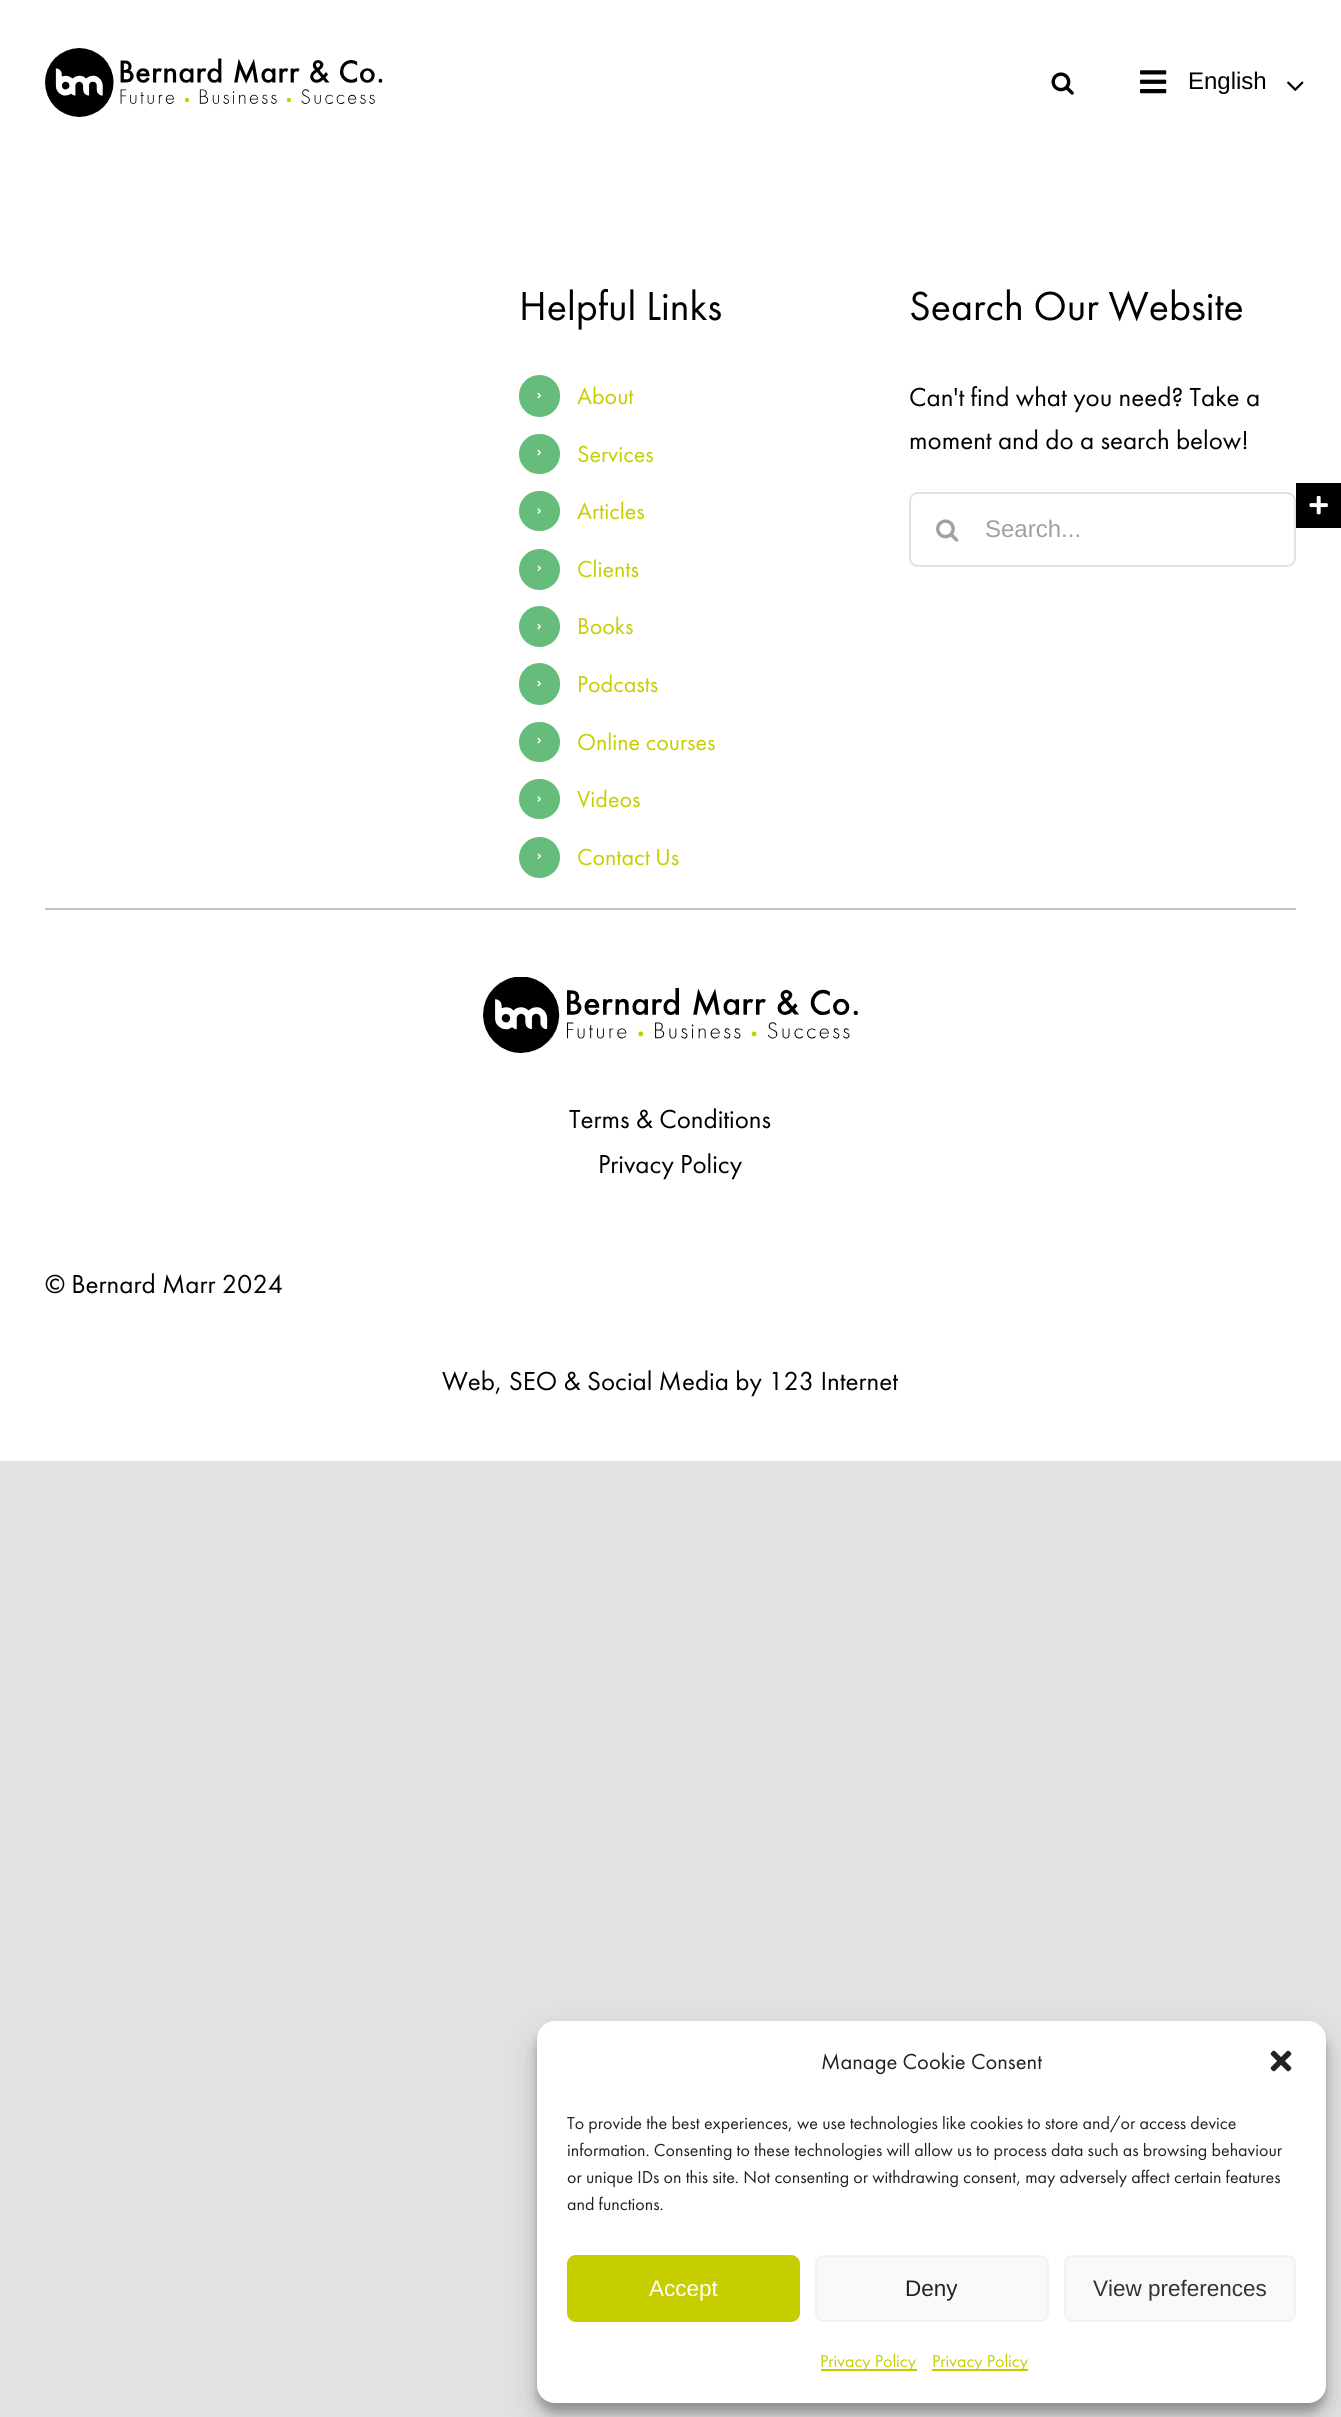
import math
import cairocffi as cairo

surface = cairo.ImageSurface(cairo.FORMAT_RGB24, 1341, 2417)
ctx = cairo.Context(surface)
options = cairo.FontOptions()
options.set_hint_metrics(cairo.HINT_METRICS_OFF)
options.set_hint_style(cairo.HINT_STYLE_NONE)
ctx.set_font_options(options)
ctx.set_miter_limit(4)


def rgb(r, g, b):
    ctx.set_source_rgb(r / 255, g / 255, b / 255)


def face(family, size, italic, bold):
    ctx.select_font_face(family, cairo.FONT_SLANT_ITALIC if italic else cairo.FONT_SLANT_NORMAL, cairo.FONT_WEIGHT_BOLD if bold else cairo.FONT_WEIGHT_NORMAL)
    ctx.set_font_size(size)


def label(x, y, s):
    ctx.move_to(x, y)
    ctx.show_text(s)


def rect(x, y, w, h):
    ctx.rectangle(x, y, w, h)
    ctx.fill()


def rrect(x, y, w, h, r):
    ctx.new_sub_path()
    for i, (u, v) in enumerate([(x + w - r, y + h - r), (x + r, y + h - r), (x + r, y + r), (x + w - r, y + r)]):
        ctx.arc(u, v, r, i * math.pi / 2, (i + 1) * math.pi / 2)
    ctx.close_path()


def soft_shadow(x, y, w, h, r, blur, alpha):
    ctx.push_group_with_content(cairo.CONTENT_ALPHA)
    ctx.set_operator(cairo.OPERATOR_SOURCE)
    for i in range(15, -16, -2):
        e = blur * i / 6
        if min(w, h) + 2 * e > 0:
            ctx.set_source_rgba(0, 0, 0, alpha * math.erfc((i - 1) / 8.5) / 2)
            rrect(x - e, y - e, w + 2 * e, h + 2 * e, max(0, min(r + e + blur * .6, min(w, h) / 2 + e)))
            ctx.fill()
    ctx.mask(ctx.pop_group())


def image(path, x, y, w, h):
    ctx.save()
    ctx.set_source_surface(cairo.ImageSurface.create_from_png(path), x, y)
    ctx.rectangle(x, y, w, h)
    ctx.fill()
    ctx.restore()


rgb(226, 226, 226)
ctx.paint()
rgb(255, 255, 255)
rect(0, 0, 1341, 1461)
image('image0.png', 45, 48, 338, 69)
image('image1.png', 1051, 72, 23, 23)
image('image2.png', 1140, 70, 27, 24)
face('Liberation Sans', 24, 0, 0)
rgb(0, 0, 0)
label(1188, 89, 'English')
image('image3.png', 1287, 81, 17, 10)
rect(1296, 483, 45, 45)
image('image4.png', 1309, 495, 19, 20)
face('Futura PT', 42, 0, 0)
label(519, 320, 'Helpful Links')
rgb(101, 188, 123)
rrect(519, 375, 41, 42, 20.5)
ctx.fill()
image('image5.png', 537, 392, 4, 7)
face('Futura PT', 24, 0, 0)
rgb(198, 206, 0)
label(577, 404, 'About')
rgb(101, 188, 123)
rrect(519, 434, 41, 40, 20)
ctx.fill()
image('image5.png', 537, 449, 4, 7)
rgb(198, 206, 0)
label(577, 462, 'Services')
rgb(101, 188, 123)
rrect(519, 491, 41, 40, 20)
ctx.fill()
image('image6.png', 537, 508, 4, 6)
rgb(198, 206, 0)
label(577, 519, 'Articles')
rgb(101, 188, 123)
ctx.new_path()
ctx.arc(539.5, 569.5, 20.5, 0, 2 * math.pi)
ctx.fill()
image('image6.png', 537, 565, 4, 6)
rgb(198, 206, 0)
label(577, 577, 'Clients')
rgb(101, 188, 123)
ctx.new_path()
ctx.arc(539.5, 626.5, 20.5, 0, 2 * math.pi)
ctx.fill()
image('image5.png', 537, 623, 4, 7)
rgb(198, 206, 0)
label(577, 634, 'Books')
rgb(101, 188, 123)
rrect(519, 663, 41, 42, 20.5)
ctx.fill()
image('image5.png', 537, 680, 4, 7)
rgb(198, 206, 0)
label(577, 692, 'Podcasts')
rgb(101, 188, 123)
rrect(519, 722, 41, 40, 20)
ctx.fill()
image('image5.png', 537, 737, 4, 7)
rgb(198, 206, 0)
label(577, 750, 'Online courses')
rgb(101, 188, 123)
rrect(519, 779, 41, 40, 20)
ctx.fill()
image('image6.png', 537, 796, 4, 6)
rgb(198, 206, 0)
label(577, 807, 'Videos')
rgb(101, 188, 123)
ctx.new_path()
ctx.arc(539.5, 857.5, 20.5, 0, 2 * math.pi)
ctx.fill()
image('image6.png', 537, 853, 4, 6)
rgb(198, 206, 0)
label(577, 865, 'Contact Us')
face('Futura PT', 42, 0, 0)
rgb(0, 0, 0)
label(909, 320, 'Search Our Website')
face('Futura PT', 27, 0, 0)
label(909, 406, 'Can\'t find what you need? Take a')
label(909, 449, 'moment and do a search below!')
rrect(910, 493, 385, 73, 8)
rgb(226, 226, 226)
ctx.stroke()
image('image7.png', 936, 519, 23, 23)
face('Liberation Sans', 24, 0, 0)
rgb(158, 160, 164)
label(985, 537, 'Search...')
rgb(193, 193, 193)
rect(45, 908, 1251, 2)
image('image8.png', 483, 977, 375, 76)
face('Futura PT', 27, 0, 0)
rgb(0, 0, 0)
label(569, 1128, 'Terms & Conditions')
label(598, 1173, 'Privacy Policy')
label(45, 1293, '© Bernard Marr 2024')
label(442, 1390, 'Web, SEO & Social Media by 123 Internet')
rgb(0, 0, 0)
soft_shadow(537, 2030, 789, 382, 18, 4.5, 0.23)
soft_shadow(537, 2036, 789, 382, 18, 15, 0.19)
rgb(255, 255, 255)
rrect(537, 2021, 789, 382, 18)
ctx.fill()
face('Futura PT', 22.5, 0, 0)
rgb(34, 34, 34)
label(821, 2069, 'Manage Cookie Consent')
image('image9.png', 1270, 2050, 22, 22)
face('Futura PT', 18, 0, 0)
label(567, 2129, 'To provide the best experiences, we use technologies like cookies to store and/or access device')
label(567, 2156, 'information. Consenting to these technologies will allow us to process data such as browsing behaviour')
label(567, 2183, 'or unique IDs on this site. Not consenting or withdrawing consent, may adversely affect certain features')
label(567, 2210, 'and functions.')
rgb(198, 206, 0)
rrect(568, 2256, 231, 65, 8)
ctx.fill_preserve()
ctx.stroke()
face('Liberation Sans', 22.5, 0, 0)
rgb(255, 255, 255)
label(649, 2296, 'Accept')
rgb(249, 249, 249)
rrect(816, 2256, 232, 65, 8)
ctx.fill_preserve()
rgb(242, 242, 242)
ctx.stroke()
rgb(34, 34, 34)
label(905, 2296, 'Deny')
rgb(249, 249, 249)
rrect(1065, 2256, 230, 65, 8)
ctx.fill_preserve()
rgb(242, 242, 242)
ctx.stroke()
rgb(51, 51, 51)
label(1093, 2296, 'View preferences')
rgb(198, 206, 0)
rect(821, 2369, 96, 2)
face('Futura PT', 18, 0, 0)
label(820, 2367, 'Privacy Policy')
rect(932, 2369, 96, 2)
label(932, 2367, 'Privacy Policy')
surface.write_to_png('render.png')
